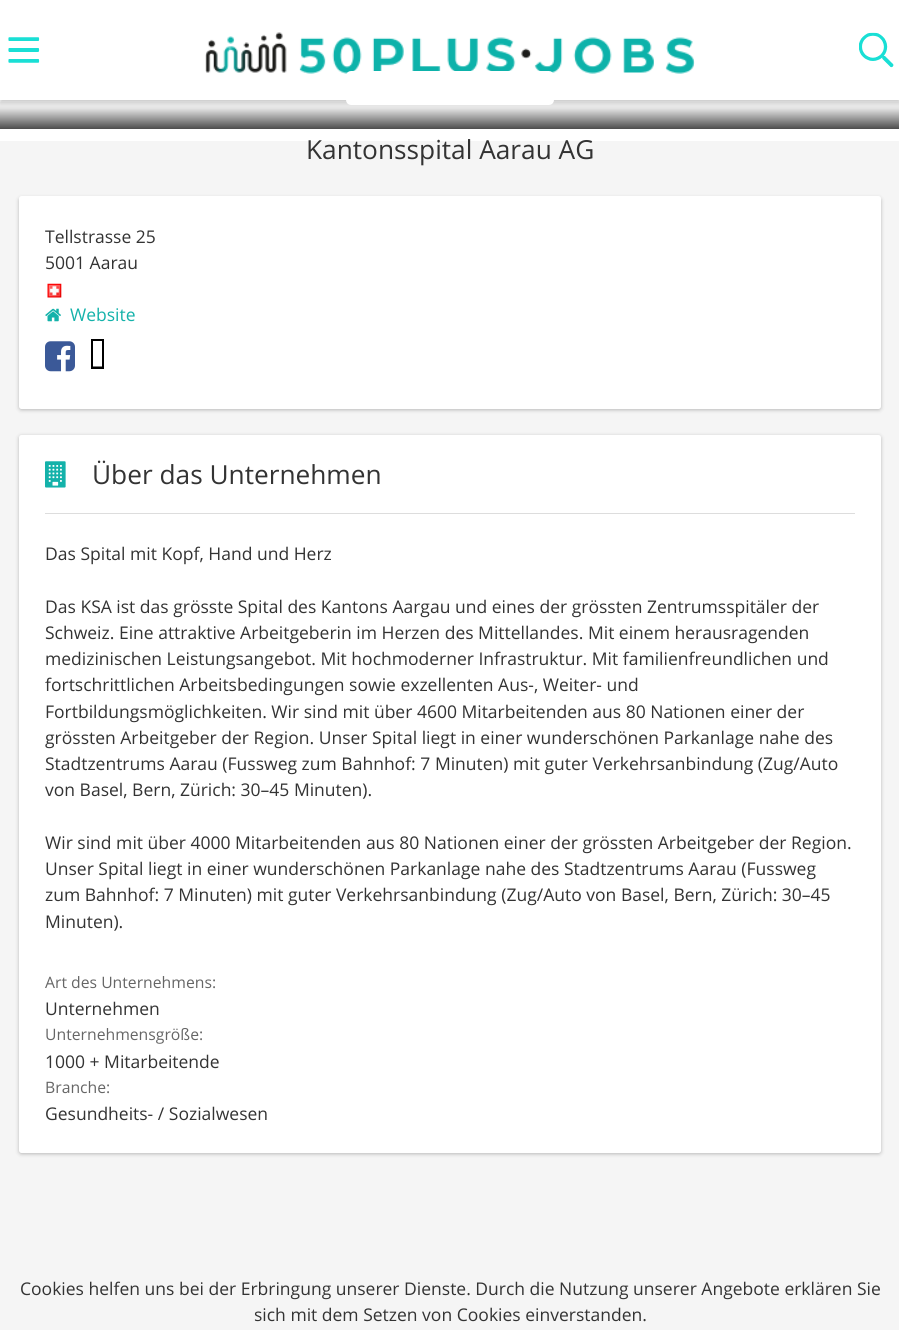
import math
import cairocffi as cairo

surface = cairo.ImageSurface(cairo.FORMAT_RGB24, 899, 1330)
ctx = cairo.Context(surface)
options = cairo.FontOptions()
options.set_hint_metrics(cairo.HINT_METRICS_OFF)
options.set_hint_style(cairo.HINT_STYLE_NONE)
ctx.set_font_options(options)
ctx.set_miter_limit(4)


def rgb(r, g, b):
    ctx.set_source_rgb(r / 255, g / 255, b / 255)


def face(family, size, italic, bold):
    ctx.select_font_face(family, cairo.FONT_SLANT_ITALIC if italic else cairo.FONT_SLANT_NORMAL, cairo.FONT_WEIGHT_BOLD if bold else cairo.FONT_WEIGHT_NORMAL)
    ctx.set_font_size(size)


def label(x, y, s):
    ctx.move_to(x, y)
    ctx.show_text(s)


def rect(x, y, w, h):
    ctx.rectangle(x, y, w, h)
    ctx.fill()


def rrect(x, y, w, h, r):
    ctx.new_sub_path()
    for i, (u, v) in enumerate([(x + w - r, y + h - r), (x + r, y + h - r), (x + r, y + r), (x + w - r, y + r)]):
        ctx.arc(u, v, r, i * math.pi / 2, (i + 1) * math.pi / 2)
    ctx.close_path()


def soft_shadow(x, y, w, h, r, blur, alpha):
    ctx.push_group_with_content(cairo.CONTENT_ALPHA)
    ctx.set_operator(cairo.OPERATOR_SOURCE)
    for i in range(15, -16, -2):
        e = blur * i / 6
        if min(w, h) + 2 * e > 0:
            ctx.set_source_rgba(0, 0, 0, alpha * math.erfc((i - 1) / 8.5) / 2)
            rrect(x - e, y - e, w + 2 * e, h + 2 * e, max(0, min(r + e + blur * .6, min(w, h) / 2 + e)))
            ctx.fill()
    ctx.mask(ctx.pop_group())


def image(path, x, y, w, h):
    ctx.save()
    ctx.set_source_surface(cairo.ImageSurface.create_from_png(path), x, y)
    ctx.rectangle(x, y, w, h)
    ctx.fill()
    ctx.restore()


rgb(245, 245, 245)
ctx.paint()
rgb(255, 255, 255)
rect(0, 100, 899, 41)
rgb(145, 145, 145)
soft_shadow(0, 3, 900, 100, 0, 2.5, 0.5)
rgb(255, 255, 255)
rect(0, 0, 899, 100)
image('image0.png', 8, 37, 32, 26)
image('image1.png', 205, 32, 490, 42)
image('image2.png', 859, 32, 35, 36)
gradient = cairo.LinearGradient(450, 100, 450, 129)
gradient.add_color_stop_rgba(0, 0, 0, 0, 0)
gradient.add_color_stop_rgba(0.28, 0, 0, 0, 0.1)
gradient.add_color_stop_rgba(1, 0, 0, 0, 0.7)
ctx.set_source(gradient)
rect(0, 102, 899, 27)
rgb(255, 255, 255)
rrect(347.5, 72.5, 205, 31, 3.5)
ctx.fill_preserve()
ctx.set_line_width(3)
ctx.stroke()
face('Open Sans', 26.25, 0, 0)
rgb(51, 51, 51)
label(306, 159, 'Kantonsspital Aarau AG')
rgb(0, 0, 0)
soft_shadow(19, 198, 862, 212, 2.5, 2, 0.25)
rgb(255, 255, 255)
rrect(19, 196, 862, 213, 2.5)
ctx.fill()
face('Open Sans', 17.5, 0, 0)
rgb(51, 51, 51)
label(45, 243, 'Tellstrasse 25')
label(45, 269, '5001 Aarau')
image('image3.png', 47, 283, 15, 15)
image('image4.png', 45, 308, 16, 14)
rgb(20, 178, 170)
label(70, 321, 'Website')
image('image5.png', 45, 341, 30, 31)
rgb(0, 0, 0)
ctx.new_path()
ctx.move_to(93, 366.5)
ctx.line_to(93, 341)
ctx.line_to(102, 341)
ctx.line_to(102, 366.5)
ctx.close_path()
ctx.move_to(91, 369)
ctx.line_to(104, 369)
ctx.line_to(104, 339)
ctx.line_to(91, 339)
ctx.close_path()
ctx.fill()
rgb(0, 0, 0)
soft_shadow(19, 436, 862, 718, 2.5, 2, 0.25)
rgb(255, 255, 255)
rrect(19, 435, 862, 718, 2.5)
ctx.fill()
rgb(221, 221, 221)
rect(45, 513, 810, 1)
image('image6.png', 45, 461, 21, 27)
face('Open Sans', 26.25, 0, 0)
rgb(51, 51, 51)
label(92, 484, 'Über das Unternehmen')
face('Open Sans', 17.5, 0, 0)
label(45, 560, 'Das Spital mit Kopf, Hand und Herz')
label(45, 613, 'Das KSA ist das grösste Spital des Kantons Aargau und eines der grössten Zentrumsspitäler der')
label(45, 639, 'Schweiz. Eine attraktive Arbeitgeberin im Herzen des Mittellandes. Mit einem herausragenden')
label(45, 665, 'medizinischen Leistungsangebot. Mit hochmoderner Infrastruktur. Mit familienfreundlichen und')
label(45, 691, 'fortschrittlichen Arbeitsbedingungen sowie exzellenten Aus-, Weiter- und')
label(45, 718, 'Fortbildungsmöglichkeiten. Wir sind mit über 4600 Mitarbeitenden aus 80 Nationen einer der')
label(45, 744, 'grössten Arbeitgeber der Region. Unser Spital liegt in einer wunderschönen Parkanlage nahe des')
label(45, 770, 'Stadtzentrums Aarau (Fussweg zum Bahnhof: 7 Minuten) mit guter Verkehrsanbindung (Zug/Auto')
label(45, 796, 'von Basel, Bern, Zürich: 30–45 Minuten).')
label(45, 849, 'Wir sind mit über 4000 Mitarbeitenden aus 80 Nationen einer der grössten Arbeitgeber der Region.')
label(45, 875, 'Unser Spital liegt in einer wunderschönen Parkanlage nahe des Stadtzentrums Aarau (Fussweg')
label(45, 901, 'zum Bahnhof: 7 Minuten) mit guter Verkehrsanbindung (Zug/Auto von Basel, Bern, Zürich: 30–45')
label(45, 928, 'Minuten).')
face('Open Sans', 15.75, 0, 0)
rgb(102, 102, 102)
label(45, 988, 'Art des Unternehmens:')
face('Open Sans', 17.5, 0, 0)
rgb(51, 51, 51)
label(45, 1015, 'Unternehmen')
face('Open Sans', 15.75, 0, 0)
rgb(102, 102, 102)
label(45, 1040, 'Unternehmensgröße:')
face('Open Sans', 17.5, 0, 0)
rgb(51, 51, 51)
label(45, 1068, '1000 + Mitarbeitende')
face('Open Sans', 15.75, 0, 0)
rgb(102, 102, 102)
label(45, 1093, 'Branche:')
face('Open Sans', 17.5, 0, 0)
rgb(51, 51, 51)
label(45, 1120, 'Gesundheits- / Sozialwesen')
label(20, 1295, 'Cookies helfen uns bei der Erbringung unserer Dienste. Durch die Nutzung unserer Angebote erklären Sie')
label(254, 1321, 'sich mit dem Setzen von Cookies einverstanden.')
surface.write_to_png('render.png')
